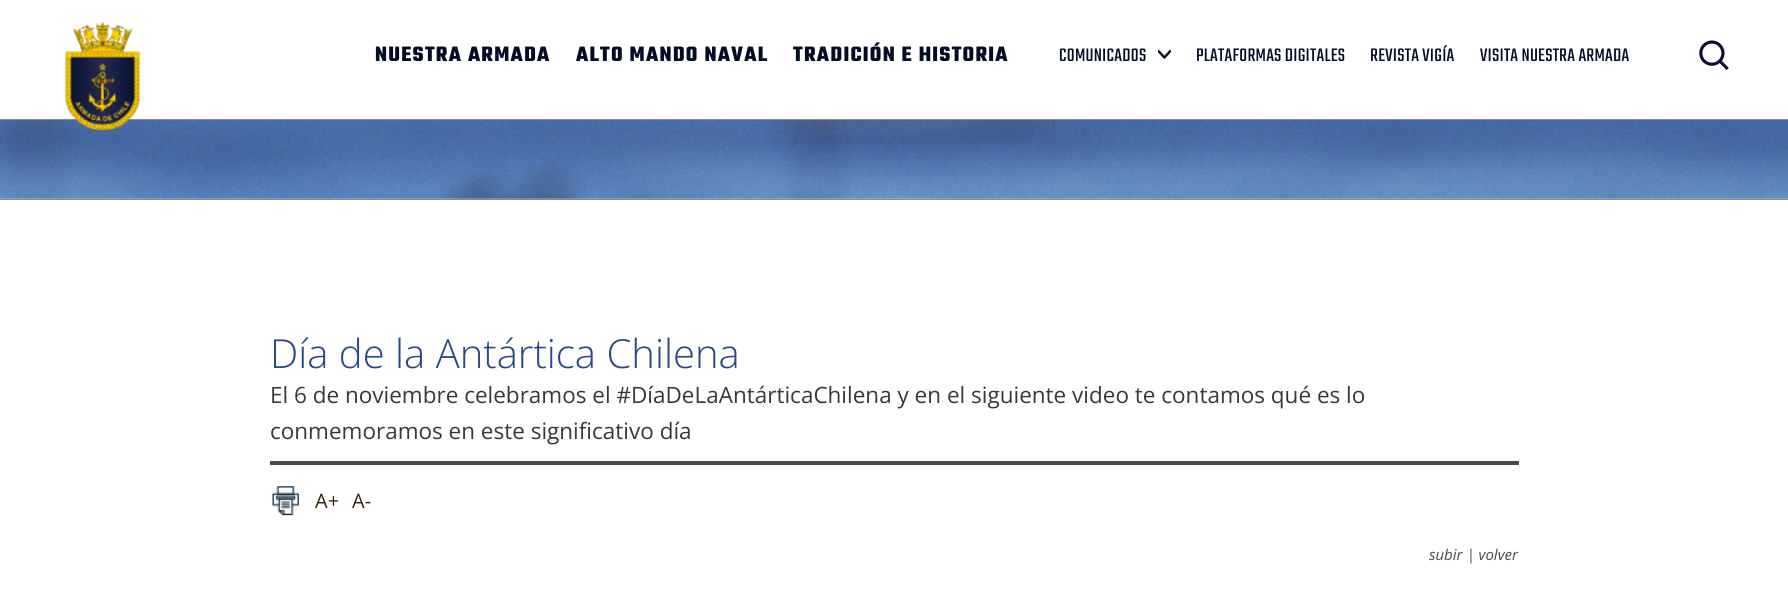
import math
import cairocffi as cairo

surface = cairo.ImageSurface(cairo.FORMAT_RGB24, 1788, 604)
ctx = cairo.Context(surface)
options = cairo.FontOptions()
options.set_hint_metrics(cairo.HINT_METRICS_OFF)
options.set_hint_style(cairo.HINT_STYLE_NONE)
ctx.set_font_options(options)
ctx.set_miter_limit(4)


def rgb(r, g, b):
    ctx.set_source_rgb(r / 255, g / 255, b / 255)


def face(family, size, italic, bold):
    ctx.select_font_face(family, cairo.FONT_SLANT_ITALIC if italic else cairo.FONT_SLANT_NORMAL, cairo.FONT_WEIGHT_BOLD if bold else cairo.FONT_WEIGHT_NORMAL)
    ctx.set_font_size(size)


def label(x, y, s):
    ctx.move_to(x, y)
    ctx.show_text(s)


def tracked(x, y, s, letter, word):
    ctx.move_to(x, y)
    for ch in s:
        ctx.show_text(ch)
        ctx.rel_move_to(letter + word * (ch == ' '), 0)


def rect(x, y, w, h):
    ctx.rectangle(x, y, w, h)
    ctx.fill()


def image(path, x, y, w, h):
    ctx.save()
    ctx.set_source_surface(cairo.ImageSurface.create_from_png(path), x, y)
    ctx.rectangle(x, y, w, h)
    ctx.fill()
    ctx.restore()


rgb(255, 255, 255)
ctx.paint()
rgb(137, 137, 137)
rect(0, 119, 1788, 1)
image('image3.png', 0, 120, 1788, 79)
image('image0.png', 64, 22, 77, 109)
face('Teko', 22.5, 0, 1)
rgb(4, 12, 37)
tracked(375, 61, 'NUESTRA ARMADA', 1.25, 0)
tracked(576, 61, 'ALTO MANDO NAVAL', 1.25, 0)
tracked(793, 61, 'TRADICIÓN E HISTORIA', 1.25, 0)
image('image1.png', 1158, 50, 13, 9)
face('Teko', 20, 0, 0)
tracked(1059, 61, 'COMUNICADOS', 0.25, 0)
tracked(1196, 61, 'PLATAFORMAS DIGITALES', 0.25, 0)
tracked(1370, 61, 'REVISTA VIGÍA', 0.25, 0)
tracked(1480, 61, 'VISITA NUESTRA ARMADA', 0.25, 0)
image('image2.png', 1699, 40, 30, 30)
rgb(137, 137, 137)
rect(0, 199, 1788, 1)
face('Open Sans Light', 40, 0, 0)
rgb(44, 71, 134)
label(270, 368, 'Día de la Antártica Chilena')
rgb(73, 73, 73)
rect(270, 461, 1249, 4)
face('Open Sans', 22.5, 0, 0)
rgb(57, 57, 57)
label(270, 403, 'El 6 de noviembre celebramos el #DíaDeLaAntárticaChilena y en el siguiente video te contamos qué es lo')
label(270, 439, 'conmemoramos en este significativo día')
image('image4.png', 272, 486, 27, 30)
face('Open Sans', 20, 0, 0)
rgb(55, 36, 12)
label(315, 508, 'A+')
label(352, 508, 'A-')
face('Open Sans', 15, 1, 0)
rgb(73, 73, 73)
label(1429, 560, 'subir | volver')
surface.write_to_png('render.png')
